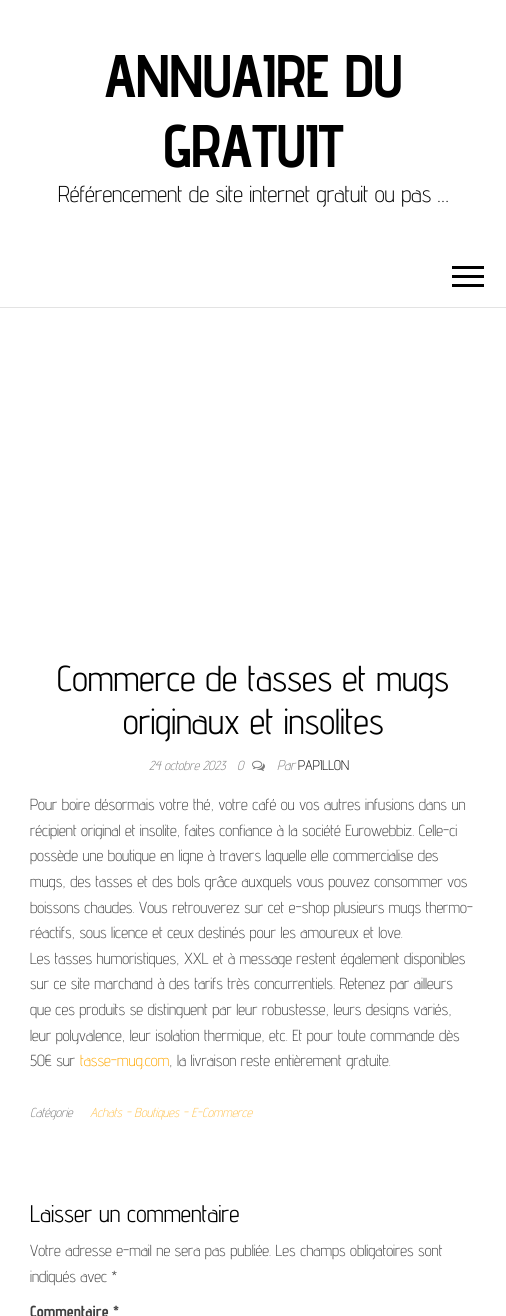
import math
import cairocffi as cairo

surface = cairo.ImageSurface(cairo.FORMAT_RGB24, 506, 1316)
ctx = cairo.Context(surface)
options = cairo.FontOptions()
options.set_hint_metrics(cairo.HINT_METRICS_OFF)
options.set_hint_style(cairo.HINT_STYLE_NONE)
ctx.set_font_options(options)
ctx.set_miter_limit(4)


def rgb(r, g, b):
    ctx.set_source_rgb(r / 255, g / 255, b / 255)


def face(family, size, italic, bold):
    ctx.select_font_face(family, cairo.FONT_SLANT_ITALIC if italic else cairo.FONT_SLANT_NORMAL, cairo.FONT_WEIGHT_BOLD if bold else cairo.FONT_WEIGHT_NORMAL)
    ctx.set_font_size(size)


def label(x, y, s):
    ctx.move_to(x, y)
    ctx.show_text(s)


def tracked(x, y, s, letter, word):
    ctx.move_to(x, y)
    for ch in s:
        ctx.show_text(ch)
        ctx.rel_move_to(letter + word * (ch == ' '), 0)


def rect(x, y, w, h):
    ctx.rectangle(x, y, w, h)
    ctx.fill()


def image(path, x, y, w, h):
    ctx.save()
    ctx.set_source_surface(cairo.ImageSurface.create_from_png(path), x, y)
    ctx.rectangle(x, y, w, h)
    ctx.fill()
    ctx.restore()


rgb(255, 255, 255)
ctx.paint()
face('Advent Pro', 60, 0, 1)
rgb(0, 0, 0)
tracked(104, 97, 'ANNUAIRE DU', -1.25, 0)
tracked(163, 167, 'GRATUIT', -1.25, 0)
face('Advent Pro Light', 23, 0, 0)
label(58, 202, 'Référencement de site internet gratuit ou pas …')
rgb(227, 227, 227)
rect(0, 307, 506, 1)
rgb(0, 0, 0)
rect(452, 266, 32, 3)
rect(452, 275, 32, 3)
rect(452, 284, 32, 3)
face('Advent Pro', 36, 0, 0)
label(57, 691, 'Commerce de tasses et mugs')
label(123, 734, 'originaux et insolites')
face('Advent Pro Light', 13, 1, 0)
rgb(121, 121, 121)
label(149, 770, '24 octobre 2023')
label(237, 770, '0')
image('image0.png', 252, 760, 13, 11)
face('Advent Pro Light', 14, 1, 0)
label(277, 770, 'Par')
face('Advent Pro Light', 14, 0, 0)
rgb(0, 0, 0)
label(298, 770, 'PAPILLON')
face('Advent Pro Light', 16, 0, 0)
rgb(64, 64, 64)
label(30, 810, 'Pour boire désormais votre thé, votre café ou vos autres infusions dans un')
label(30, 836, 'récipient original et insolite, faites confiance à la société Eurowebbiz. Celle-ci')
label(30, 861, 'possède une boutique en ligne à travers laquelle elle commercialise des')
label(30, 887, 'mugs, des tasses et des bols grâce auxquels vous pouvez consommer vos')
label(30, 913, 'boissons chaudes. Vous retrouverez sur cet e-shop plusieurs mugs thermo-')
label(30, 938, 'réactifs, sous licence et ceux destinés pour les amoureux et love.')
label(30, 964, 'Les tasses humoristiques, XXL et à message restent également disponibles')
label(30, 989, 'sur ce site marchand à des tarifs très concurrentiels. Retenez par ailleurs')
label(30, 1015, 'que ces produits se distinguent par leur robustesse, leurs designs variés,')
label(30, 1041, 'leur polyvalence, leur isolation thermique, etc. Et pour toute commande dès')
label(30, 1066, '50€ sur')
rgb(255, 167, 0)
label(80, 1066, 'tasse-mug.com')
rgb(64, 64, 64)
label(169, 1066, ', la livraison reste entièrement gratuite.')
face('Advent Pro Light', 13, 1, 0)
rgb(121, 121, 121)
label(30, 1117, 'Catégorie')
rgb(255, 193, 77)
label(90, 1117, 'Achats - Boutiques - E-Commerce')
face('Advent Pro', 24, 0, 0)
rgb(0, 0, 0)
label(30, 1222, 'Laisser un commentaire')
face('Advent Pro Light', 16, 0, 0)
rgb(64, 64, 64)
label(30, 1256, 'Votre adresse e-mail ne sera pas publiée. Les champs obligatoires sont')
label(30, 1282, 'indiqués avec *')
face('Advent Pro', 16, 0, 1)
label(30, 1317, 'Commentaire *')
surface.write_to_png('render.png')
